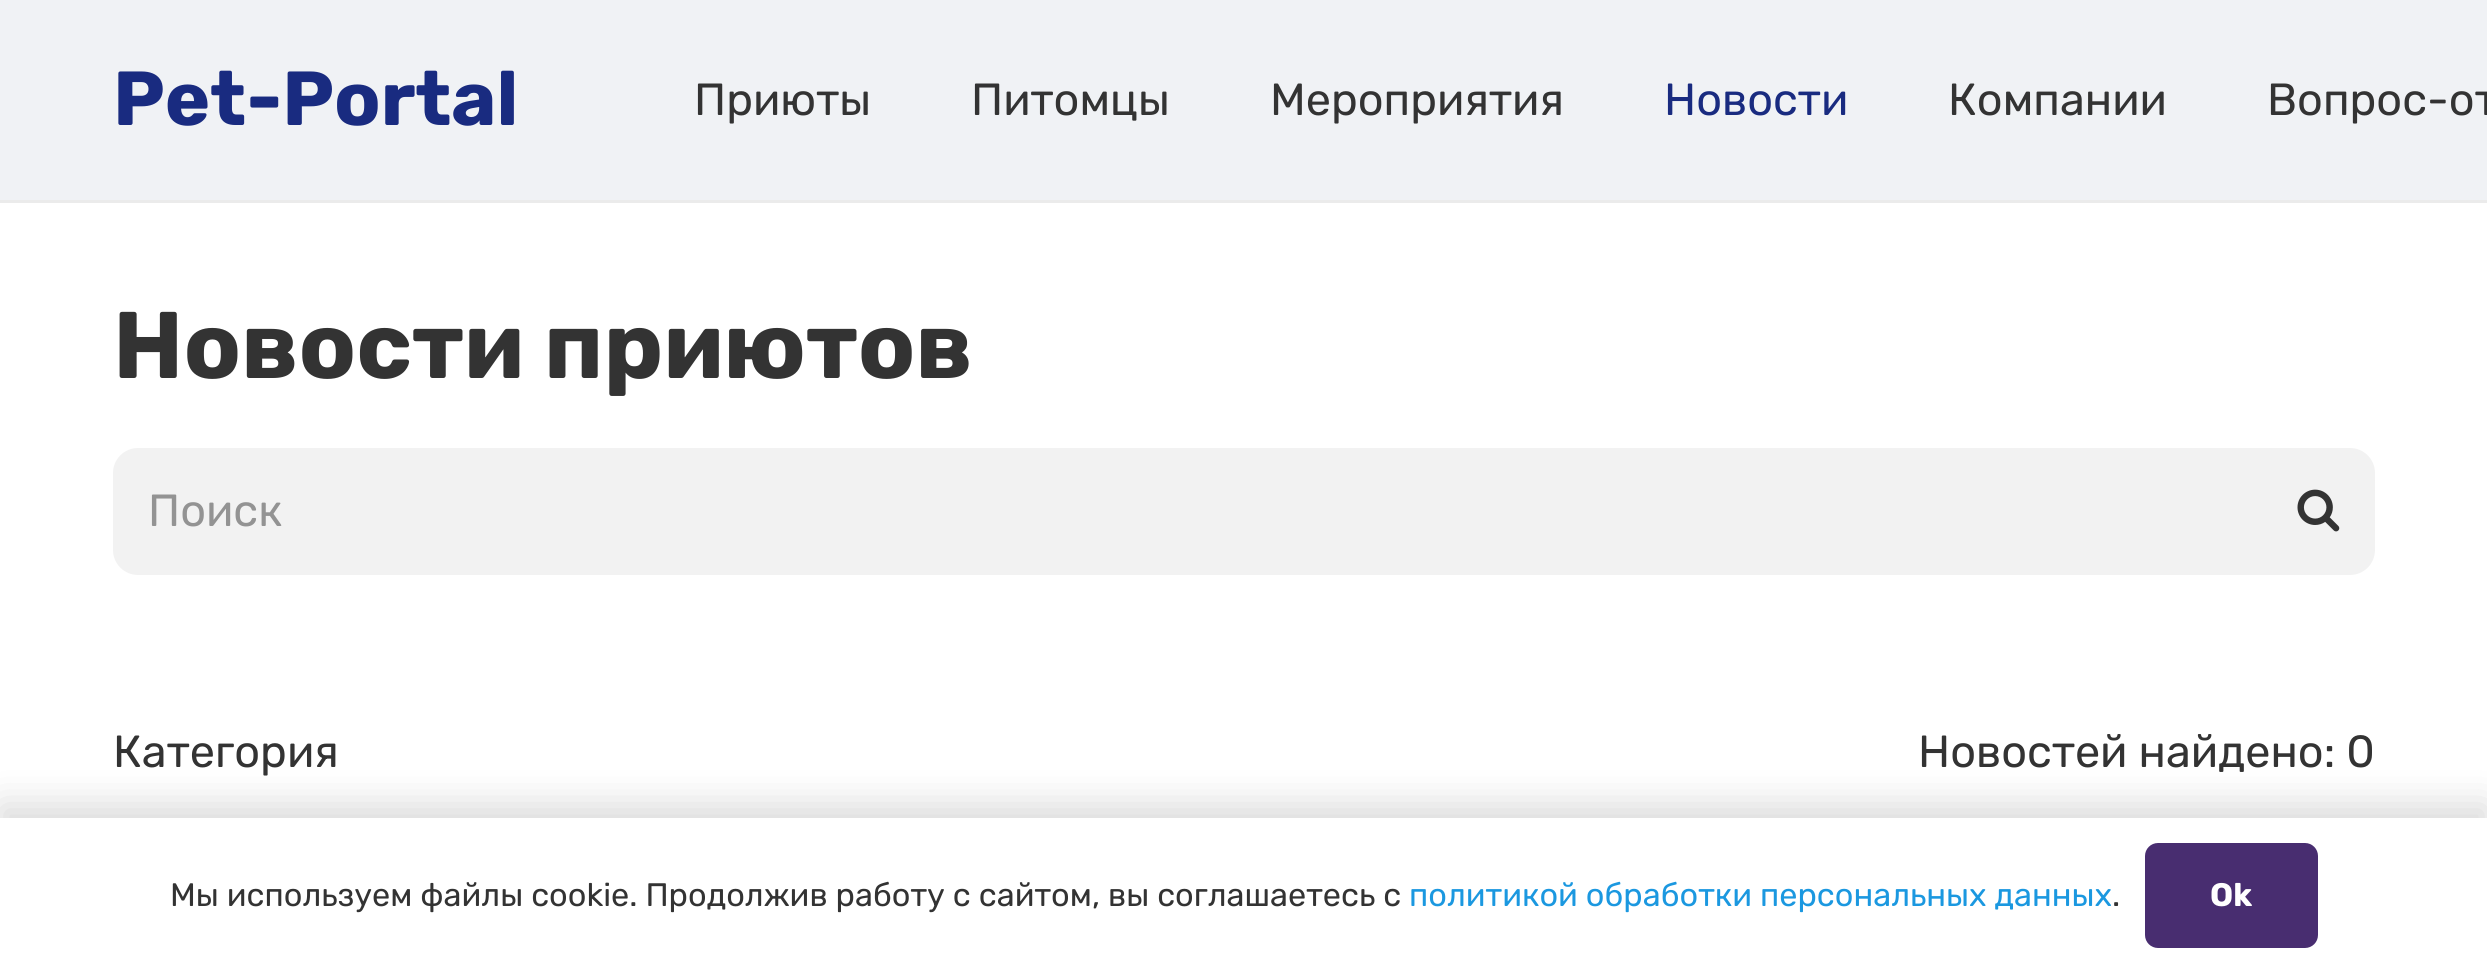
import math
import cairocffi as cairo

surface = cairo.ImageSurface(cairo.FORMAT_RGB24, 2487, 972)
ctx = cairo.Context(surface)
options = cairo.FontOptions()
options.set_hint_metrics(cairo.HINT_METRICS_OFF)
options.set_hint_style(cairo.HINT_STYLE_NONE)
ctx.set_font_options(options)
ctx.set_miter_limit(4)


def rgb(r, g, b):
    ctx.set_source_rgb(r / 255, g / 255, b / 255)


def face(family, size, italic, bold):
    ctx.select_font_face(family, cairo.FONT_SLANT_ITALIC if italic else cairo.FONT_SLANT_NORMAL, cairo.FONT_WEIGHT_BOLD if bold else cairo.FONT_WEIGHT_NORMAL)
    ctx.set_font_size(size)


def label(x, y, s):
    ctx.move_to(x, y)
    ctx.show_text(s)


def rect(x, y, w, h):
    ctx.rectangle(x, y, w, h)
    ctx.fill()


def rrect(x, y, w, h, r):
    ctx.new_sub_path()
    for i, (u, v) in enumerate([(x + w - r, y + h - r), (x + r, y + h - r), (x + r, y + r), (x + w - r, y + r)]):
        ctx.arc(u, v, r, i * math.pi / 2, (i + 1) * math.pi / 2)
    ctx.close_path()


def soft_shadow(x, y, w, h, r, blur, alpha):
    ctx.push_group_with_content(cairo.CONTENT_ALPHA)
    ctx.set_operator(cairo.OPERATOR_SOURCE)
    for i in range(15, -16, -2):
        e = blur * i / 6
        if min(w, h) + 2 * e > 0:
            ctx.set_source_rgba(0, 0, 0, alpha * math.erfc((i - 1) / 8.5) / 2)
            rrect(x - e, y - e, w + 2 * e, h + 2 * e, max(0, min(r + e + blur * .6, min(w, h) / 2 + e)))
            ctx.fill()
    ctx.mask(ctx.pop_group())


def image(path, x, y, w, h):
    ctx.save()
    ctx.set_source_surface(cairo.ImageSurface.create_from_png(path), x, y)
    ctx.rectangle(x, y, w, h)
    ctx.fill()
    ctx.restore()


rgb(255, 255, 255)
ctx.paint()
rgb(235, 235, 235)
ctx.new_path()
ctx.move_to(0, 200)
ctx.line_to(0, 203)
ctx.line_to(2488, 203)
ctx.line_to(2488, 3)
ctx.line_to(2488, 200)
ctx.close_path()
ctx.fill()
rgb(240, 242, 245)
rect(0, 0, 2487, 200)
face('Rubik Light', 76.5, 0, 0)
rgb(25, 43, 128)
label(113, 125, 'Pet-Portal')
face('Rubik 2 Light', 45, 0, 0)
rgb(51, 51, 51)
label(694, 115, 'Приюты')
label(971, 115, 'Питомцы')
label(1270, 115, 'Мероприятия')
rgb(25, 43, 128)
label(1664, 115, 'Новости')
rgb(51, 51, 51)
label(1948, 115, 'Компании')
label(2267, 115, 'Вопрос-от')
face('Rubik Light', 94.5, 0, 0)
label(113, 378, 'Новости приютов')
rgb(242, 242, 242)
rrect(113, 448, 2262, 127, 25)
ctx.fill()
face('Rubik 2 Light', 45, 0, 0)
rgb(147, 147, 147)
label(148, 526, 'Поиск')
image('image0.png', 2297, 489, 43, 43)
rgb(51, 51, 51)
label(113, 767, 'Категория')
label(1918, 767, 'Новостей найдено: 0')
rgb(0, 0, 0)
soft_shadow(0, 805, 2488, 155, 0, 19, 0.15)
rgb(255, 255, 255)
rect(0, 818, 2487, 154)
face('Rubik 2 Light', 32.5, 0, 0)
rgb(51, 51, 51)
label(170, 906, 'Мы используем файлы cookie. Продолжив работу с сайтом, вы соглашаетесь с')
rgb(27, 152, 224)
label(1409, 906, 'политикой обработки персональных данных')
rgb(51, 51, 51)
label(2112, 906, '.')
rgb(72, 45, 112)
rrect(2145, 843, 173, 105, 13)
ctx.fill()
face('Rubik Light', 32.5, 0, 0)
rgb(255, 255, 255)
label(2210, 906, 'Ok')
surface.write_to_png('render.png')
